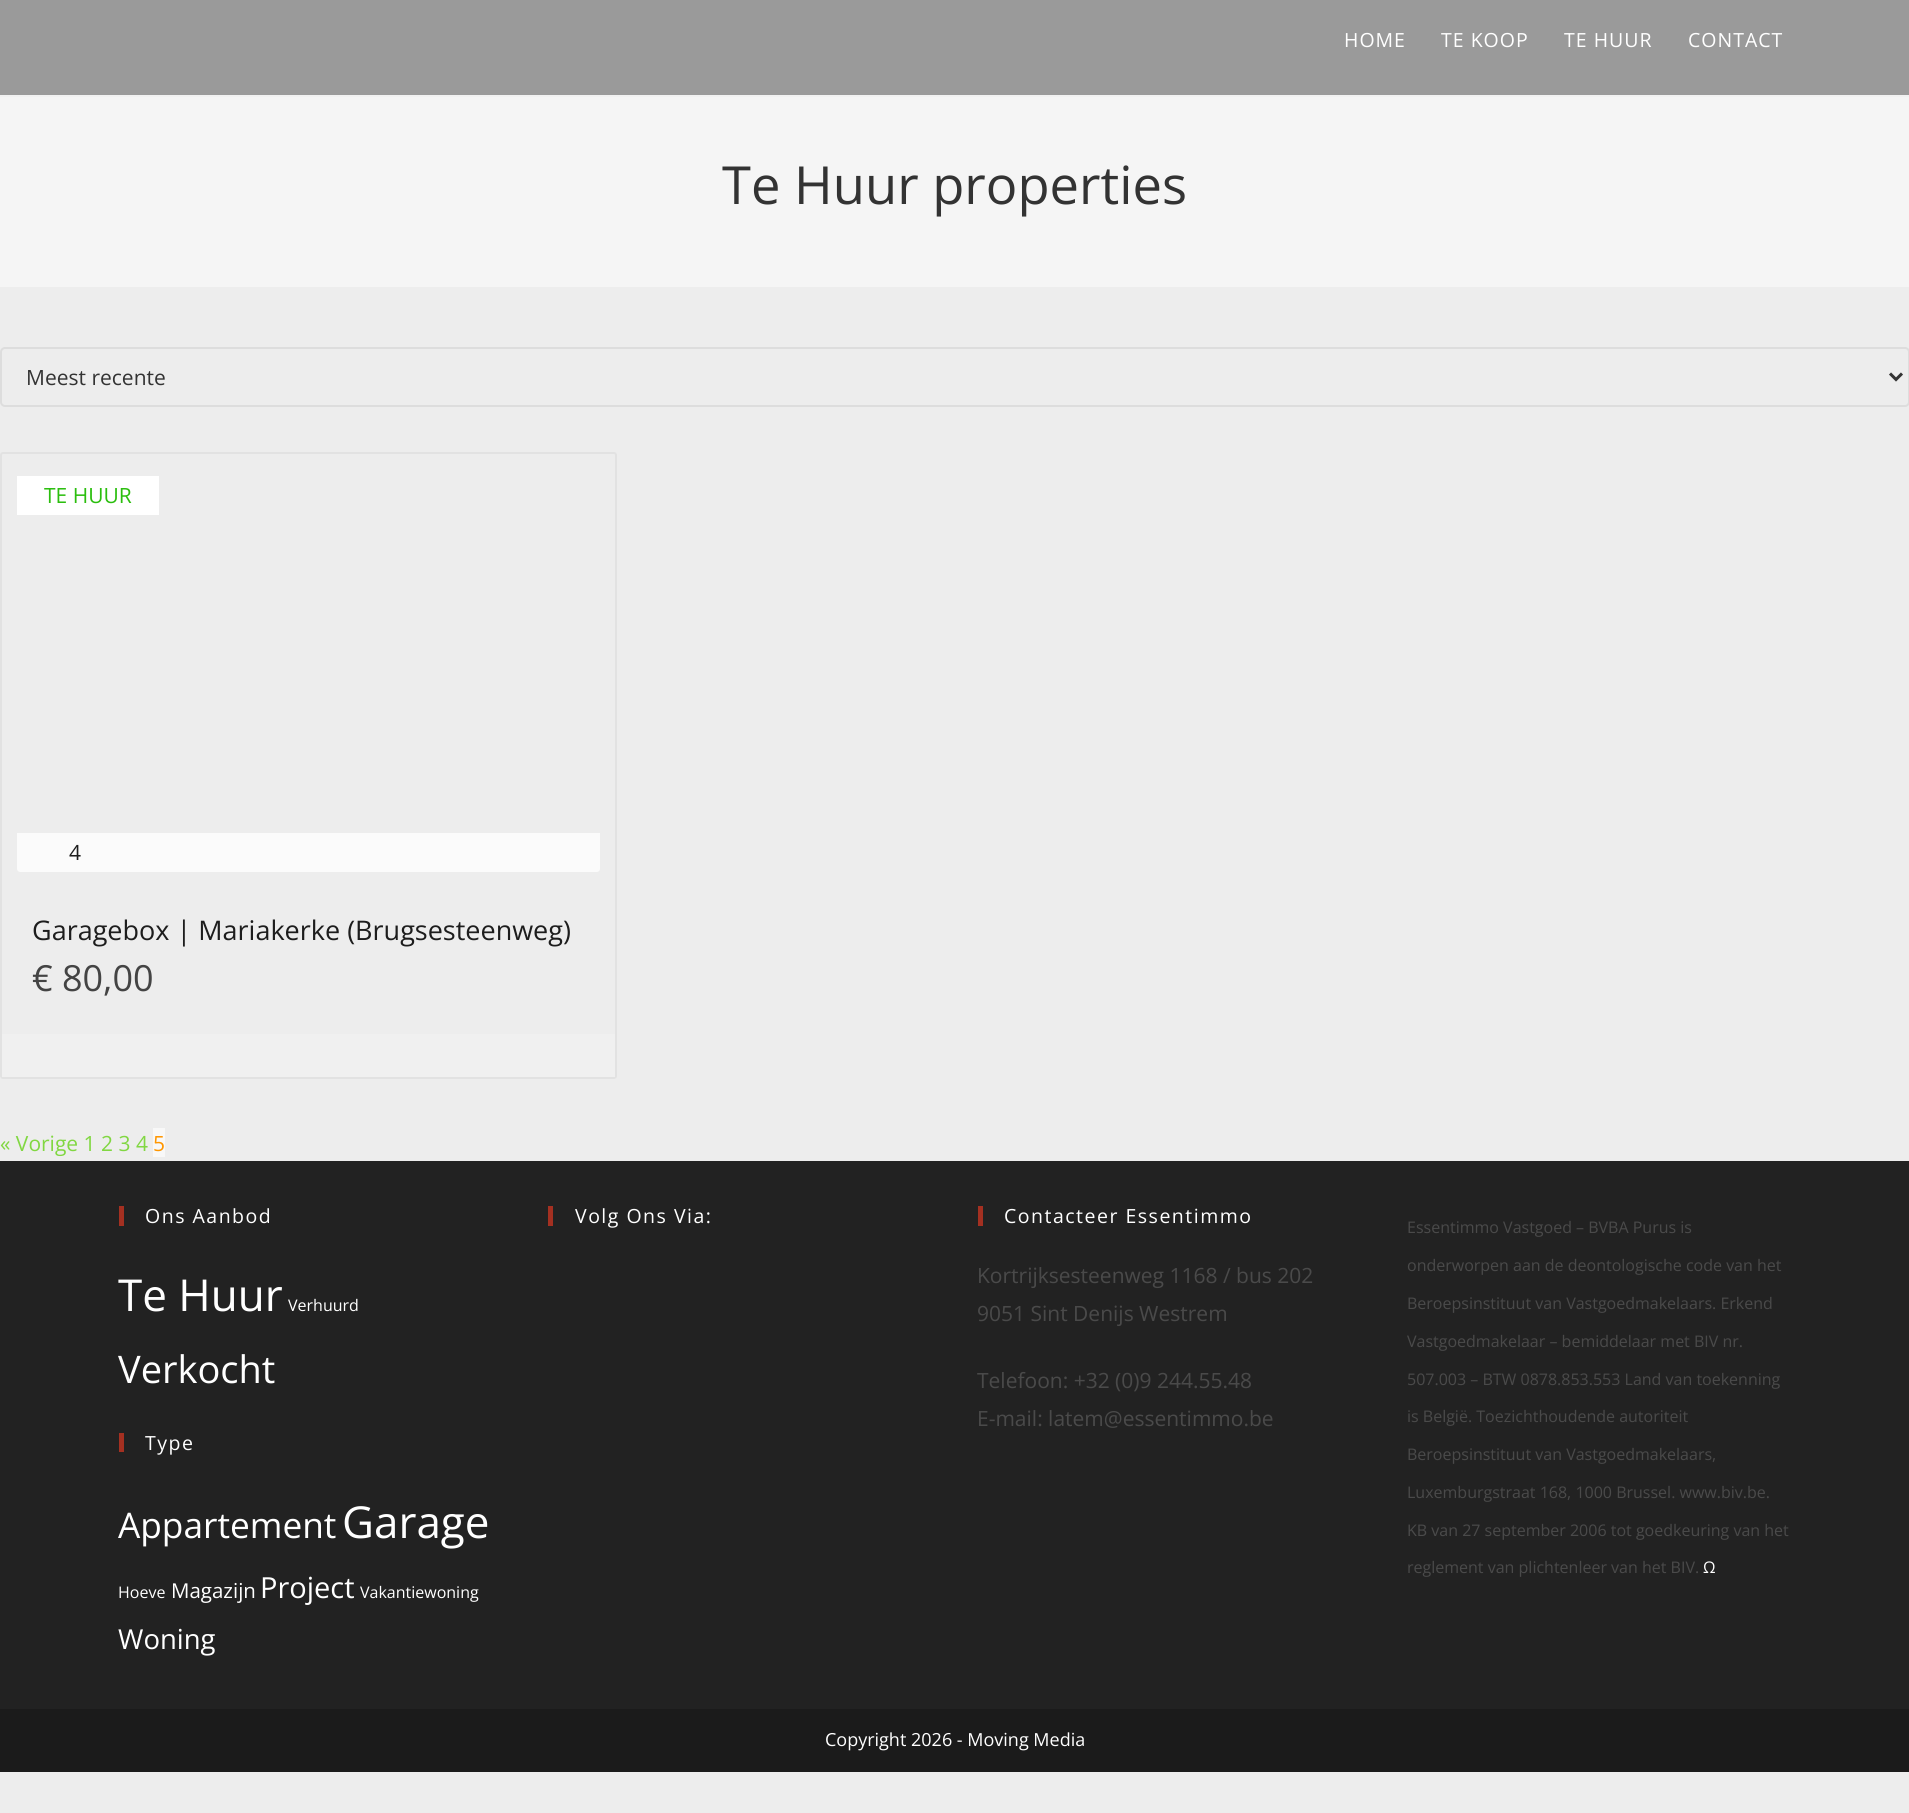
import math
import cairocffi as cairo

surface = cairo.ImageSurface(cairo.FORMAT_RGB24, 1909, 1813)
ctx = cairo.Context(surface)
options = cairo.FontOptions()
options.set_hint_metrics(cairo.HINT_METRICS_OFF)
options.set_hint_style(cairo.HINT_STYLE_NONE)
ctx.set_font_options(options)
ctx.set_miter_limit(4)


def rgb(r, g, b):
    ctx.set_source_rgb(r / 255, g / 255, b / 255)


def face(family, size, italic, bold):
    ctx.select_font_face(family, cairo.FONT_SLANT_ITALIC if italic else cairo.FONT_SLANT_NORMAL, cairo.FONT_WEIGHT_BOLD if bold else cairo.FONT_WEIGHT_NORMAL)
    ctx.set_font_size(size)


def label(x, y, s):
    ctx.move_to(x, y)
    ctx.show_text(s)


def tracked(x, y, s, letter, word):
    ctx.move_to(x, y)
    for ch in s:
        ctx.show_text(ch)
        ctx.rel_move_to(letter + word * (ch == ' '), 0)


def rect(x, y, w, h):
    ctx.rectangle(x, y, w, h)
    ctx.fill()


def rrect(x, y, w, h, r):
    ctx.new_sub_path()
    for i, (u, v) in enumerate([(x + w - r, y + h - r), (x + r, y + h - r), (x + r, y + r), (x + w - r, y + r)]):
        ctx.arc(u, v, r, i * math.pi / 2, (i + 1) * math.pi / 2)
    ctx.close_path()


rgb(237, 237, 237)
ctx.paint()
rgb(154, 154, 154)
rect(0, 0, 1909, 95)
rgb(241, 241, 241)
rect(0, 95, 1909, 2)
face('Open Sans', 19.5, 0, 0)
rgb(255, 255, 255)
tracked(1344, 47, 'HOME', 1, 0)
tracked(1441, 47, 'TE KOOP', 1, 0)
tracked(1564, 47, 'TE HUUR', 1, 0)
tracked(1688, 47, 'CONTACT', 1, 0)
rgb(245, 245, 245)
rect(0, 97, 1909, 190)
face('Open Sans', 52.5, 0, 0)
rgb(51, 51, 51)
label(722, 204, 'Te Huur properties')
rrect(1, 348, 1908, 58, 4)
rgb(221, 221, 221)
ctx.stroke()
ctx.new_path()
ctx.move_to(1890, 373.5)
ctx.line_to(1896, 379.5)
ctx.line_to(1902, 373.5)
rgb(51, 51, 51)
ctx.set_line_width(3)
ctx.stroke()
face('Open Sans', 21, 0, 0)
label(26, 385, 'Meest recente')
rrect(1, 453, 615, 625, 2)
rgb(226, 226, 226)
ctx.set_line_width(2)
ctx.stroke()
rgb(255, 255, 255)
rect(17, 476, 142, 39)
rgb(43, 190, 14)
label(44, 503, 'TE HUUR')
rgb(251, 251, 251)
ctx.new_path()
ctx.move_to(17, 833)
ctx.line_to(600, 833)
ctx.line_to(600, 869)
ctx.curve_to(600, 870.5, 598.5, 872, 597, 872)
ctx.line_to(20, 872)
ctx.curve_to(18.5, 872, 17, 870.5, 17, 869)
ctx.close_path()
ctx.fill()
rgb(29, 29, 29)
label(69, 860, '4')
face('Open Sans', 27, 0, 0)
label(32, 940, 'Garagebox | Mariakerke (Brugsesteenweg)')
face('Open Sans', 36, 0, 0)
rgb(68, 68, 68)
label(32, 991, '€ 80,00')
rgb(240, 240, 240)
rect(2, 1034, 613, 43)
face('Open Sans', 21, 0, 0)
rgb(129, 215, 66)
label(0, 1151, '« Vorige 1 2 3 4')
rgb(248, 248, 248)
rect(153, 1128, 12, 29)
rgb(255, 150, 0)
label(153, 1151, '5')
rgb(34, 34, 34)
rect(0, 1161, 1909, 548)
rgb(164, 48, 33)
rect(119, 1206, 5, 20)
face('Open Sans', 19.5, 0, 0)
rgb(255, 255, 255)
tracked(145, 1223, 'Ons Aanbod', 1.5, 0)
face('Open Sans', 44, 0, 0)
label(118, 1311, 'Te Huur')
face('Open Sans', 16, 0, 0)
label(288, 1311, 'Verhuurd')
face('Open Sans', 38, 0, 0)
label(118, 1383, 'Verkocht')
rgb(164, 48, 33)
rect(119, 1433, 5, 19)
face('Open Sans', 19.5, 0, 0)
rgb(255, 255, 255)
tracked(145, 1450, 'Type', 1.5, 0)
face('Open Sans', 35.25, 0, 0)
label(118, 1538, 'Appartement')
face('Open Sans', 44, 0, 0)
label(342, 1538, 'Garage')
face('Open Sans', 16, 0, 0)
label(118, 1598, 'Hoeve')
face('Open Sans', 20.5, 0, 0)
label(171, 1598, 'Magazijn')
face('Open Sans', 29, 0, 0)
label(260, 1598, 'Project')
face('Open Sans', 16, 0, 0)
label(360, 1598, 'Vakantiewoning')
face('Open Sans', 27.5, 0, 0)
label(118, 1649, 'Woning')
rgb(164, 48, 33)
rect(548, 1206, 5, 20)
face('Open Sans', 19.5, 0, 0)
rgb(255, 255, 255)
tracked(575, 1223, 'Volg Ons Via:', 1.5, 0)
rgb(164, 48, 33)
rect(978, 1206, 5, 20)
rgb(255, 255, 255)
tracked(1004, 1223, 'Contacteer Essentimmo', 1.5, 0)
face('Open Sans', 21, 0, 0)
rgb(74, 74, 74)
label(977, 1283, 'Kortrijksesteenweg 1168 / bus 202')
label(977, 1321, '9051 Sint Denijs Westrem')
label(977, 1388, 'Telefoon: +32 (0)9 244.55.48')
label(977, 1426, 'E-mail: latem@essentimmo.be')
face('Open Sans', 16, 0, 0)
label(1407, 1233, 'Essentimmo Vastgoed – BVBA Purus is')
label(1407, 1271, 'onderworpen aan de deontologische code van het')
label(1407, 1309, 'Beroepsinstituut van Vastgoedmakelaars. Erkend')
label(1407, 1347, 'Vastgoedmakelaar – bemiddelaar met BIV nr.')
label(1407, 1385, '507.003 – BTW 0878.853.553 Land van toekenning')
label(1407, 1422, 'is België. Toezichthoudende autoriteit')
label(1407, 1460, 'Beroepsinstituut van Vastgoedmakelaars,')
label(1407, 1498, 'Luxemburgstraat 168, 1000 Brussel. www.biv.be.')
label(1407, 1536, 'KB van 27 september 2006 tot goedkeuring van het')
label(1407, 1573, 'reglement van plichtenleer van het BIV.')
rgb(255, 255, 255)
label(1703, 1573, 'Ω')
rgb(27, 27, 27)
rect(0, 1709, 1909, 63)
face('Open Sans', 18, 0, 0)
rgb(255, 255, 255)
label(825, 1746, 'Copyright 2026 - Moving Media')
surface.write_to_png('render.png')
